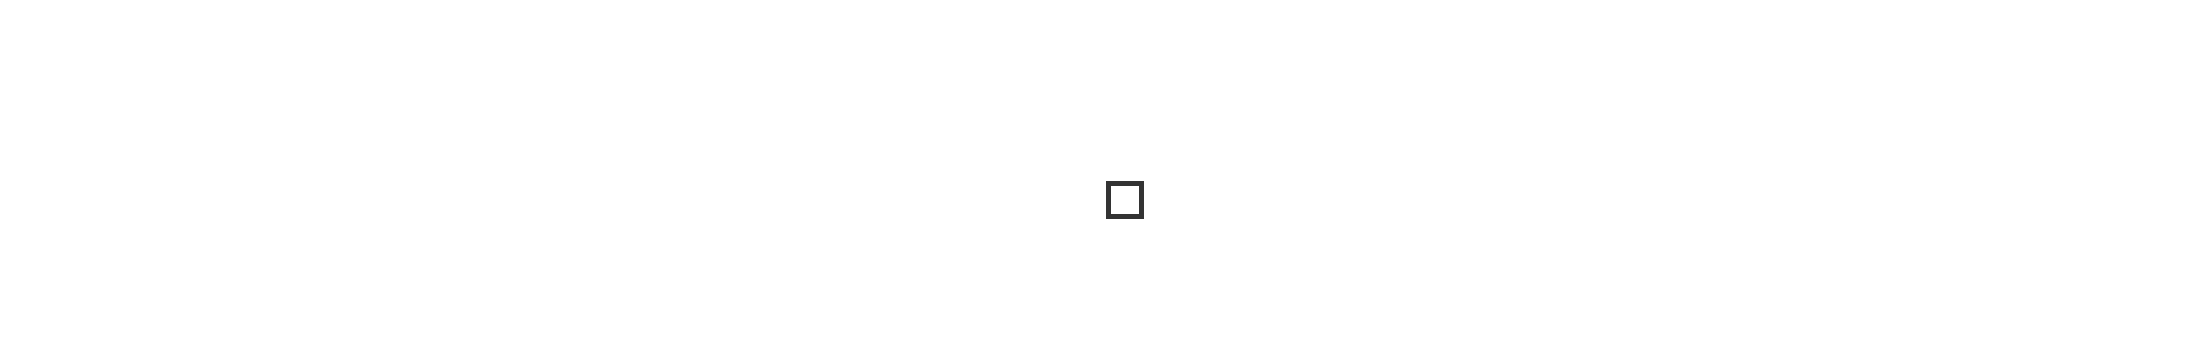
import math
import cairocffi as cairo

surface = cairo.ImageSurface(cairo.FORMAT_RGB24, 2211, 362)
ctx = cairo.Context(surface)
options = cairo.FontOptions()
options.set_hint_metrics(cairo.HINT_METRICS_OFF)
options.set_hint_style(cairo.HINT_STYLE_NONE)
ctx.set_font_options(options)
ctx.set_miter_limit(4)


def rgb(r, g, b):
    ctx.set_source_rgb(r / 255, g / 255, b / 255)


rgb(255, 255, 255)
ctx.paint()
ctx.rectangle(1108.5, 183.5, 33, 33)
rgb(51, 51, 51)
ctx.set_line_width(5)
ctx.stroke()
surface.write_to_png('render.png')
